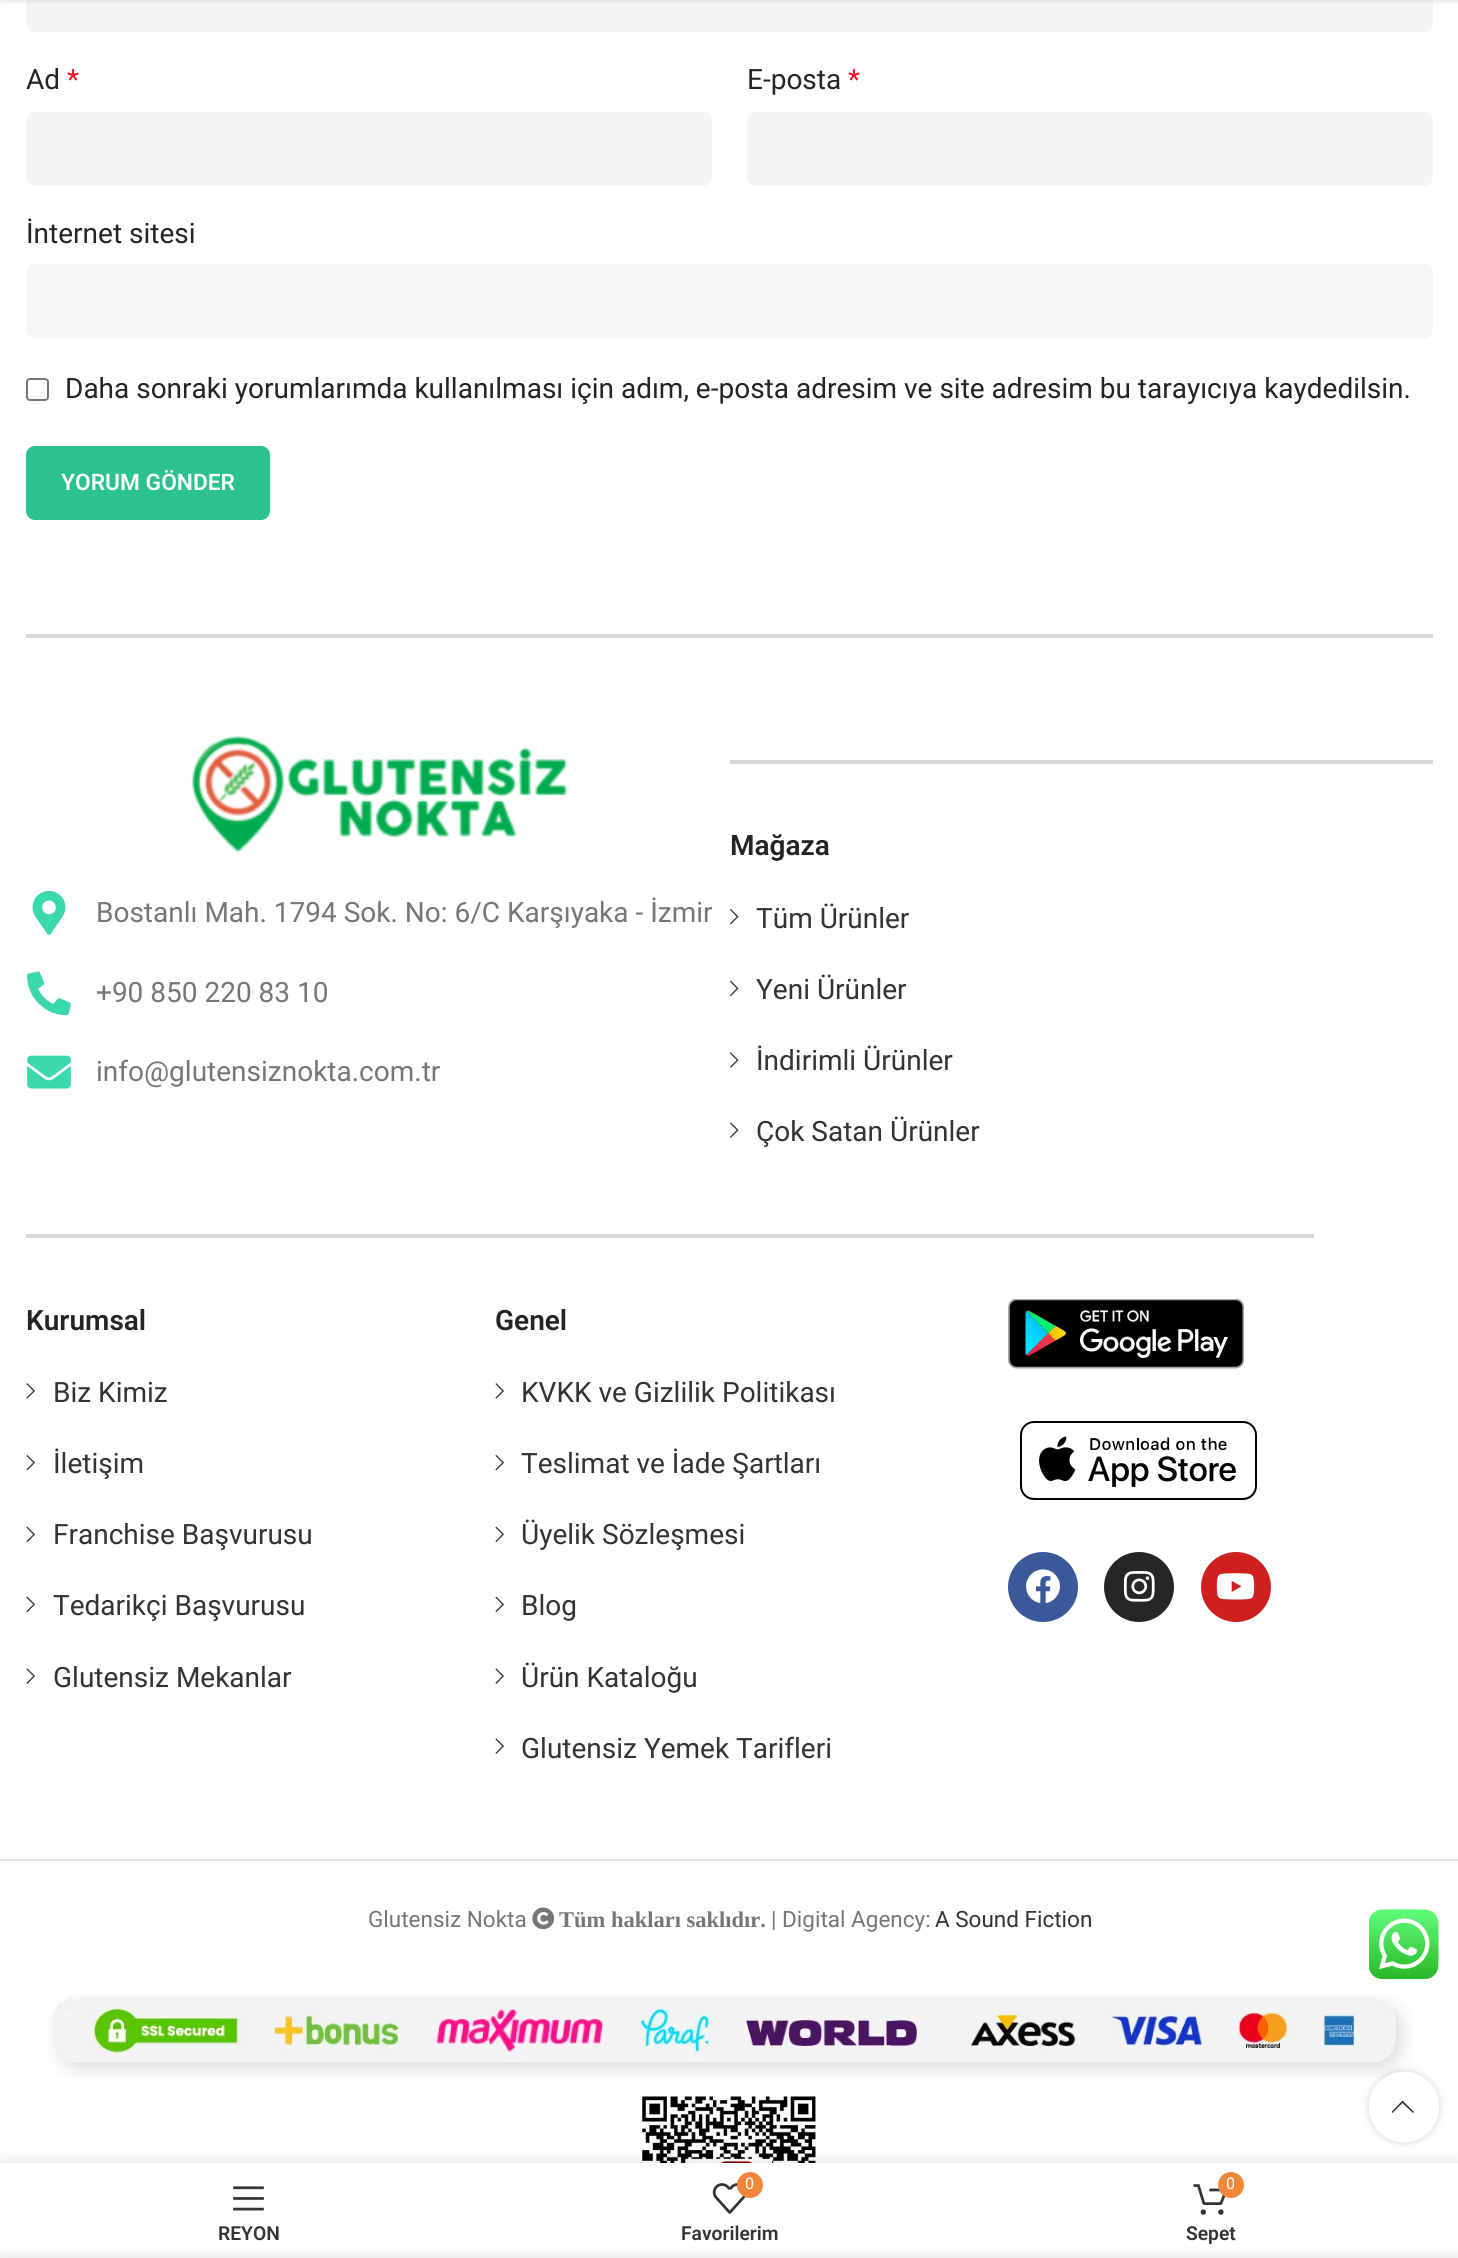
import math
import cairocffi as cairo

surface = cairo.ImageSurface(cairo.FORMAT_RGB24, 1458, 2258)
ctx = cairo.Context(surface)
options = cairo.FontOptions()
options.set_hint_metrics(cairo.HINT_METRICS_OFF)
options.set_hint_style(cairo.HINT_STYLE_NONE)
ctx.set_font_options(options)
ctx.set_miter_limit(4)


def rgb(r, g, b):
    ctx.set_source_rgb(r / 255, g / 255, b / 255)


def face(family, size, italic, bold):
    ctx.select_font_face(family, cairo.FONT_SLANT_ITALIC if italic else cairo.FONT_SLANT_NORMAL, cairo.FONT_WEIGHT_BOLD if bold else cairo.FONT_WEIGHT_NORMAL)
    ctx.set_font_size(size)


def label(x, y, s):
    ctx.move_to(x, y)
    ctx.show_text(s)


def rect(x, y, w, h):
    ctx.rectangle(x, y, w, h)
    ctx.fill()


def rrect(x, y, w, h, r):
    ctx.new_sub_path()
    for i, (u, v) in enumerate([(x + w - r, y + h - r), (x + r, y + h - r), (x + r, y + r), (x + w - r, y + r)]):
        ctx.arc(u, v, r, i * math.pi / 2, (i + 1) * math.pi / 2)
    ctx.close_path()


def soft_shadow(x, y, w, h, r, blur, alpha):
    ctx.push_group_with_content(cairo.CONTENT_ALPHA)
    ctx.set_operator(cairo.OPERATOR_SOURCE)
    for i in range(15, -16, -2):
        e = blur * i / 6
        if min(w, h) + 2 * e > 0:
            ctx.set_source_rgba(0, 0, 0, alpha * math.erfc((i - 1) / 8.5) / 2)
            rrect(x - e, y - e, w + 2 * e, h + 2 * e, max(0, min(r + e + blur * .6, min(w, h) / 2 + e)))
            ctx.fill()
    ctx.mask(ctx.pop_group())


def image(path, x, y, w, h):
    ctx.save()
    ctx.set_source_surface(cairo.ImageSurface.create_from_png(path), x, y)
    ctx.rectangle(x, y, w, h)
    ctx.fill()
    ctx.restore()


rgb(255, 255, 255)
ctx.paint()
rgb(245, 245, 245)
rrect(26, -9, 1407, 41, 9)
ctx.fill()
rgb(0, 0, 0)
soft_shadow(0, -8, 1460, 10, 0, 2.5, 0.1)
face('Roboto', 28, 0, 0)
rgb(36, 36, 36)
label(26, 89, 'Ad')
rgb(224, 16, 32)
label(67, 89, '*')
rgb(245, 245, 245)
rrect(26, 112, 686, 74, 9)
ctx.fill()
rgb(36, 36, 36)
label(747, 89, 'E-posta')
rgb(224, 16, 32)
label(848, 89, '*')
rgb(245, 245, 245)
rrect(747, 112, 686, 74, 9)
ctx.fill()
rgb(36, 36, 36)
label(26, 243, 'İnternet sitesi')
rgb(246, 246, 246)
rrect(26, 264, 1407, 74, 9)
ctx.fill()
rrect(27, 379, 21, 21, 3)
rgb(118, 118, 118)
ctx.stroke()
rgb(36, 36, 36)
label(65, 398, 'Daha sonraki yorumlarımda kullanılması için adım, e-posta adresim ve site adresim bu tarayıcıya kaydedilsin.')
rgb(44, 193, 144)
rrect(26, 446, 244, 74, 9)
ctx.fill()
face('Roboto SemiBold', 22.75, 0, 0)
rgb(255, 255, 255)
label(61, 490, 'YORUM GÖNDER')
rgb(216, 216, 216)
rect(26, 634, 1407, 4)
image('image0.png', 191, 736, 377, 117)
image('image1.png', 32, 891, 34, 44)
face('Roboto', 28, 0, 0)
rgb(118, 118, 118)
label(96, 922, 'Bostanlı Mah. 1794 Sok. No: 6/C Karşıyaka - İzmir')
image('image2.png', 27, 971, 44, 45)
label(96, 1002, '+90 850 220 83 10')
image('image3.png', 27, 1055, 44, 34)
label(96, 1081, 'info@glutensiznokta.com.tr')
rgb(216, 216, 216)
rect(730, 760, 703, 4)
face('Roboto SemiBold', 28, 0, 0)
rgb(36, 36, 36)
label(730, 855, 'Mağaza')
image('image4.png', 729, 908, 10, 17)
face('Roboto', 28, 0, 0)
rgb(51, 51, 51)
label(756, 928, 'Tüm Ürünler')
image('image5.png', 729, 980, 10, 17)
label(756, 999, 'Yeni Ürünler')
image('image6.png', 729, 1052, 10, 16)
label(756, 1070, 'İndirimli Ürünler')
image('image6.png', 729, 1122, 10, 16)
label(756, 1141, 'Çok Satan Ürünler')
rgb(216, 216, 216)
rect(26, 1234, 1288, 4)
face('Roboto SemiBold', 28, 0, 0)
rgb(36, 36, 36)
label(26, 1330, 'Kurumsal')
image('image7.png', 26, 1383, 9, 16)
face('Roboto', 28, 0, 0)
rgb(51, 51, 51)
label(53, 1402, 'Biz Kimiz')
image('image8.png', 26, 1454, 9, 17)
label(53, 1473, 'İletişim')
image('image9.png', 26, 1526, 9, 17)
label(53, 1544, 'Franchise Başvurusu')
image('image9.png', 26, 1596, 9, 17)
label(53, 1615, 'Tedarikçi Başvurusu')
image('image10.png', 26, 1668, 9, 16)
label(53, 1687, 'Glutensiz Mekanlar')
face('Roboto SemiBold', 28, 0, 0)
rgb(36, 36, 36)
label(495, 1330, 'Genel')
image('image7.png', 495, 1383, 9, 16)
face('Roboto', 28, 0, 0)
rgb(51, 51, 51)
label(521, 1402, 'KVKK ve Gizlilik Politikası')
image('image8.png', 495, 1454, 9, 17)
label(521, 1473, 'Teslimat ve İade Şartları')
image('image9.png', 495, 1526, 9, 17)
label(521, 1544, 'Üyelik Sözleşmesi')
image('image9.png', 495, 1596, 9, 17)
label(521, 1615, 'Blog')
image('image10.png', 495, 1668, 9, 16)
label(521, 1687, 'Ürün Kataloğu')
image('image10.png', 495, 1738, 9, 16)
label(521, 1758, 'Glutensiz Yemek Tarifleri')
image('image11.png', 1008, 1299, 236, 70)
image('image12.png', 1020, 1421, 237, 79)
rgb(59, 89, 152)
ctx.arc(1043, 1587, 35, 0, 2 * math.pi)
ctx.fill()
image('image13.png', 1026, 1569, 34, 35)
rgb(38, 38, 38)
ctx.arc(1139, 1587, 35, 0, 2 * math.pi)
ctx.fill()
image('image14.png', 1123, 1571, 32, 31)
rgb(205, 32, 31)
ctx.arc(1236, 1587, 35, 0, 2 * math.pi)
ctx.fill()
image('image15.png', 1216, 1573, 39, 27)
rgb(228, 228, 228)
rect(0, 1859, 1458, 2)
face('Roboto', 22.5, 0, 0)
rgb(118, 118, 118)
label(368, 1927, 'Glutensiz Nokta')
image('image16.png', 532, 1907, 22, 23)
face('Liberation Serif', 22.5, 0, 1)
label(559, 1927, 'Tüm hakları saklıdır.')
face('Roboto', 22.5, 0, 0)
label(771, 1927, '| Digital Agency:')
rgb(51, 51, 51)
label(935, 1927, 'A Sound Fiction')
image('image17.png', 48, 1995, 1364, 83)
image('image18.png', 642, 2096, 174, 67)
image('image19.png', 1369, 1909, 70, 70)
ctx.save()
ctx.set_fill_rule(cairo.FILL_RULE_EVEN_ODD)
ctx.new_path()
ctx.move_to(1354, 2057)
ctx.line_to(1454, 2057)
ctx.line_to(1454, 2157)
ctx.line_to(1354, 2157)
ctx.close_path()
ctx.move_to(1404, 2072)
ctx.curve_to(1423.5, 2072, 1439, 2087.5, 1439, 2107)
ctx.curve_to(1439, 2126.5, 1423.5, 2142, 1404, 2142)
ctx.curve_to(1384.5, 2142, 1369, 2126.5, 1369, 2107)
ctx.curve_to(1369, 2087.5, 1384.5, 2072, 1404, 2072)
ctx.close_path()
ctx.clip()
rgb(0, 0, 0)
soft_shadow(1369, 2072, 70, 70, 35, 4.5, 0.17)
ctx.restore()
ctx.set_source_rgba(1, 1, 1, 0.9)
ctx.arc(1404, 2107, 35, 0, 2 * math.pi)
ctx.fill()
rgb(51, 51, 51)
ctx.new_path()
ctx.move_to(1413, 2113)
ctx.line_to(1414, 2112)
ctx.line_to(1402.5, 2100.5)
ctx.line_to(1391.5, 2112)
ctx.line_to(1392.5, 2113)
ctx.line_to(1402.5, 2103)
ctx.close_path()
ctx.fill()
rgb(0, 0, 0)
soft_shadow(0, 2163, 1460, 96, 0, 8, 0.12)
rgb(255, 255, 255)
rect(0, 2163, 1458, 95)
image('image20.png', 233, 2186, 31, 25)
face('Roboto SemiBold', 19.25, 0, 0)
rgb(51, 51, 51)
label(218, 2240, 'REYON')
image('image21.png', 712, 2183, 34, 31)
rgb(243, 134, 57)
ctx.arc(750, 2185, 13, 0, 2 * math.pi)
ctx.fill()
face('Roboto', 16, 0, 0)
rgb(255, 255, 255)
label(745, 2189, '0')
face('Roboto SemiBold', 19.25, 0, 0)
rgb(51, 51, 51)
label(681, 2240, 'Favorilerim')
image('image22.png', 1193, 2184, 33, 31)
rgb(243, 134, 57)
ctx.arc(1231, 2185, 13, 0, 2 * math.pi)
ctx.fill()
face('Roboto', 16, 0, 0)
rgb(255, 255, 255)
label(1226, 2189, '0')
face('Roboto SemiBold', 19.25, 0, 0)
rgb(51, 51, 51)
label(1186, 2240, 'Sepet')
rgb(0, 0, 0)
soft_shadow(0, 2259, 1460, 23, 0, 8, 0.14)
surface.write_to_png('render.png')
